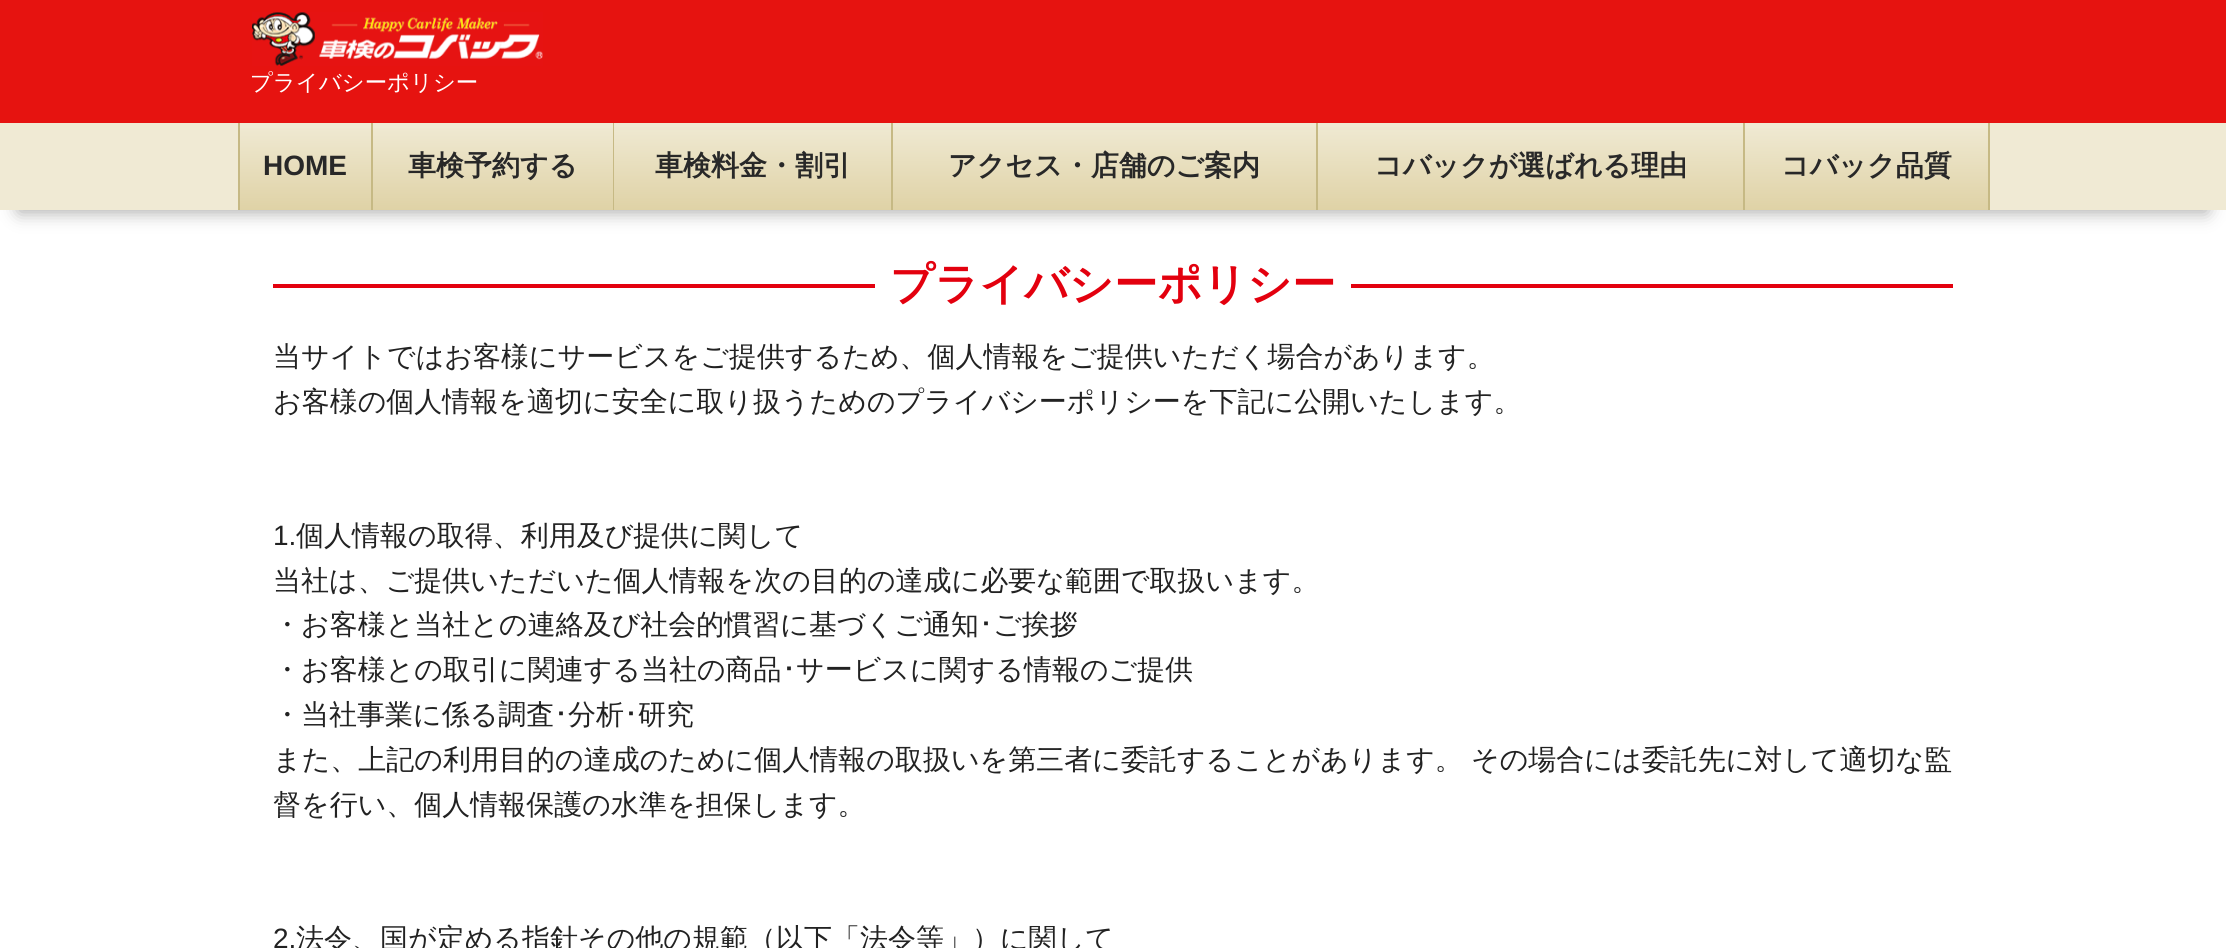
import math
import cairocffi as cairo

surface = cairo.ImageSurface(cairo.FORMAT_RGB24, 2226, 948)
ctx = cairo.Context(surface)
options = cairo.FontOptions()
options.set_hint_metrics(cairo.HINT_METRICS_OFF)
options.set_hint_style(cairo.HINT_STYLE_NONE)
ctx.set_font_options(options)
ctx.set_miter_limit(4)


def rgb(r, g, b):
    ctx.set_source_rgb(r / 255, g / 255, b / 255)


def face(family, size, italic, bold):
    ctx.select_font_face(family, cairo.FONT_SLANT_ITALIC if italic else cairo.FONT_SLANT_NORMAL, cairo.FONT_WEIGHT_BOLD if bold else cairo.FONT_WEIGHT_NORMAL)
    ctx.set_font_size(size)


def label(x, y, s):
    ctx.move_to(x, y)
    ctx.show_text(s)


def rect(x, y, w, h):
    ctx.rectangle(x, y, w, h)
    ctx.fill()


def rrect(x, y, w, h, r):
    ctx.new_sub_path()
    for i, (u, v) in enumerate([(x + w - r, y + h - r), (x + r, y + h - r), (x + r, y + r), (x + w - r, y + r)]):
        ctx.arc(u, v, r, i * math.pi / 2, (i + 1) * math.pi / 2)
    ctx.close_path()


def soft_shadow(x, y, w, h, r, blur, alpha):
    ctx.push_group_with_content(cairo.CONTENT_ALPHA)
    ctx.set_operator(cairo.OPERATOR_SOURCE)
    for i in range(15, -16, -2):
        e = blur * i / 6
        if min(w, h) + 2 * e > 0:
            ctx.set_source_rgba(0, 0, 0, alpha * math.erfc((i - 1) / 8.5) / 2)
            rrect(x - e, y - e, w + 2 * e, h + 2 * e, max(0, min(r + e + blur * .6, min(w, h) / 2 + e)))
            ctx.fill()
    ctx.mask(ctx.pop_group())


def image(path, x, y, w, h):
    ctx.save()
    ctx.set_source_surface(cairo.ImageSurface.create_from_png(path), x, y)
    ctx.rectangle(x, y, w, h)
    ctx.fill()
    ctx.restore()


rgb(255, 255, 255)
ctx.paint()
rgb(230, 19, 16)
rect(0, 0, 2226, 123)
image('image0.png', 252, 12, 291, 54)
face('WenQuanYi Zen Hei Medium', 22.4, 0, 0)
rgb(255, 255, 255)
label(250, 90, 'プライバシーポリシー')
rgb(168, 168, 167)
soft_shadow(19, 163, 2188, 49, 0, 9, 1)
rgb(240, 234, 212)
rect(0, 123, 2226, 87)
rgb(198, 185, 132)
rect(1988, 123, 2, 87)
rect(238, 123, 2, 87)
gradient = cairo.LinearGradient(305, 123, 305, 210)
gradient.add_color_stop_rgba(0, 0.941, 0.918, 0.831, 1)
gradient.add_color_stop_rgba(1, 0.875, 0.824, 0.651, 1)
ctx.set_source(gradient)
rect(240, 128, 131, 82)
face('Liberation Sans', 28, 0, 1)
rgb(40, 40, 40)
label(263, 175, 'HOME')
rgb(198, 185, 132)
rect(371, 123, 2, 87)
gradient = cairo.LinearGradient(493, 123, 493, 210)
gradient.add_color_stop_rgba(0, 0.941, 0.918, 0.831, 1)
gradient.add_color_stop_rgba(1, 0.875, 0.824, 0.651, 1)
ctx.set_source(gradient)
rect(373, 128, 240, 82)
face('WenQuanYi Zen Hei', 28, 0, 1)
rgb(40, 40, 40)
label(408, 175, '車検予約する')
rgb(198, 185, 132)
rect(613, 123, 1, 87)
gradient = cairo.LinearGradient(753, 122, 753, 210)
gradient.add_color_stop_rgba(0, 0.941, 0.918, 0.831, 1)
gradient.add_color_stop_rgba(1, 0.875, 0.824, 0.651, 1)
ctx.set_source(gradient)
rect(614, 127, 277, 83)
rgb(40, 40, 40)
label(655, 175, '車検料金・割引')
rgb(198, 185, 132)
rect(891, 123, 2, 87)
gradient = cairo.LinearGradient(1104, 122, 1104, 210)
gradient.add_color_stop_rgba(0, 0.941, 0.918, 0.831, 1)
gradient.add_color_stop_rgba(1, 0.875, 0.824, 0.651, 1)
ctx.set_source(gradient)
rect(893, 127, 423, 83)
rgb(40, 40, 40)
label(948, 175, 'アクセス・店舗のご案内')
rgb(198, 185, 132)
rect(1316, 123, 2, 87)
gradient = cairo.LinearGradient(1530, 122, 1530, 210)
gradient.add_color_stop_rgba(0, 0.941, 0.918, 0.831, 1)
gradient.add_color_stop_rgba(1, 0.875, 0.824, 0.651, 1)
ctx.set_source(gradient)
rect(1318, 127, 425, 83)
rgb(40, 40, 40)
label(1374, 175, 'コバックが選ばれる理由')
rgb(198, 185, 132)
rect(1743, 123, 2, 87)
gradient = cairo.LinearGradient(1866, 123, 1866, 210)
gradient.add_color_stop_rgba(0, 0.941, 0.918, 0.831, 1)
gradient.add_color_stop_rgba(1, 0.875, 0.824, 0.651, 1)
ctx.set_source(gradient)
rect(1745, 128, 243, 82)
rgb(40, 40, 40)
label(1781, 175, 'コバック品質')
rgb(227, 0, 14)
rect(273, 284, 1680, 4)
rgb(255, 255, 255)
rect(875, 284, 476, 4)
face('WenQuanYi Zen Hei', 43.75, 0, 1)
rgb(227, 0, 14)
label(890, 299, 'プライバシーポリシー')
face('WenQuanYi Zen Hei Medium', 28, 0, 0)
rgb(34, 34, 34)
label(273, 366, '当サイトではお客様にサービスをご提供するため、個人情報をご提供いただく場合があります。')
label(273, 411, 'お客様の個人情報を適切に安全に取り扱うためのプライバシーポリシーを下記に公開いたします。')
face('Liberation Sans', 28, 0, 0)
label(273, 545, '1.')
face('WenQuanYi Zen Hei Medium', 28, 0, 0)
label(296, 545, '個人情報の取得、利用及び提供に関して')
label(273, 590, '当社は、ご提供いただいた個人情報を次の目的の達成に必要な範囲で取扱います。')
label(273, 634, '・お客様と当社との連絡及び社会的慣習に基づくご通知')
face('IPAPGothic', 28, 0, 0)
label(979, 634, '･')
face('WenQuanYi Zen Hei Medium', 28, 0, 0)
label(993, 634, 'ご挨拶')
label(273, 679, '・お客様との取引に関連する当社の商品')
face('IPAPGothic', 28, 0, 0)
label(782, 679, '･')
face('WenQuanYi Zen Hei Medium', 28, 0, 0)
label(796, 679, 'サービスに関する情報のご提供')
label(273, 724, '・当社事業に係る調査')
face('IPAPGothic', 28, 0, 0)
label(554, 724, '･')
face('WenQuanYi Zen Hei Medium', 28, 0, 0)
label(568, 724, '分析')
face('IPAPGothic', 28, 0, 0)
label(624, 724, '･')
face('WenQuanYi Zen Hei Medium', 28, 0, 0)
label(638, 724, '研究')
label(273, 769, 'また、上記の利用目的の達成のために個人情報の取扱いを第三者に委託することがあります。')
label(1471, 769, 'その場合には委託先に対して適切な監')
label(273, 814, '督を行い、個人情報保護の水準を担保します。')
face('Liberation Sans', 28, 0, 0)
label(273, 948, '2.')
face('WenQuanYi Zen Hei Medium', 28, 0, 0)
label(296, 948, '法令、国が定める指針その他の規範（以下「法令等」）に関して')
surface.write_to_png('render.png')
